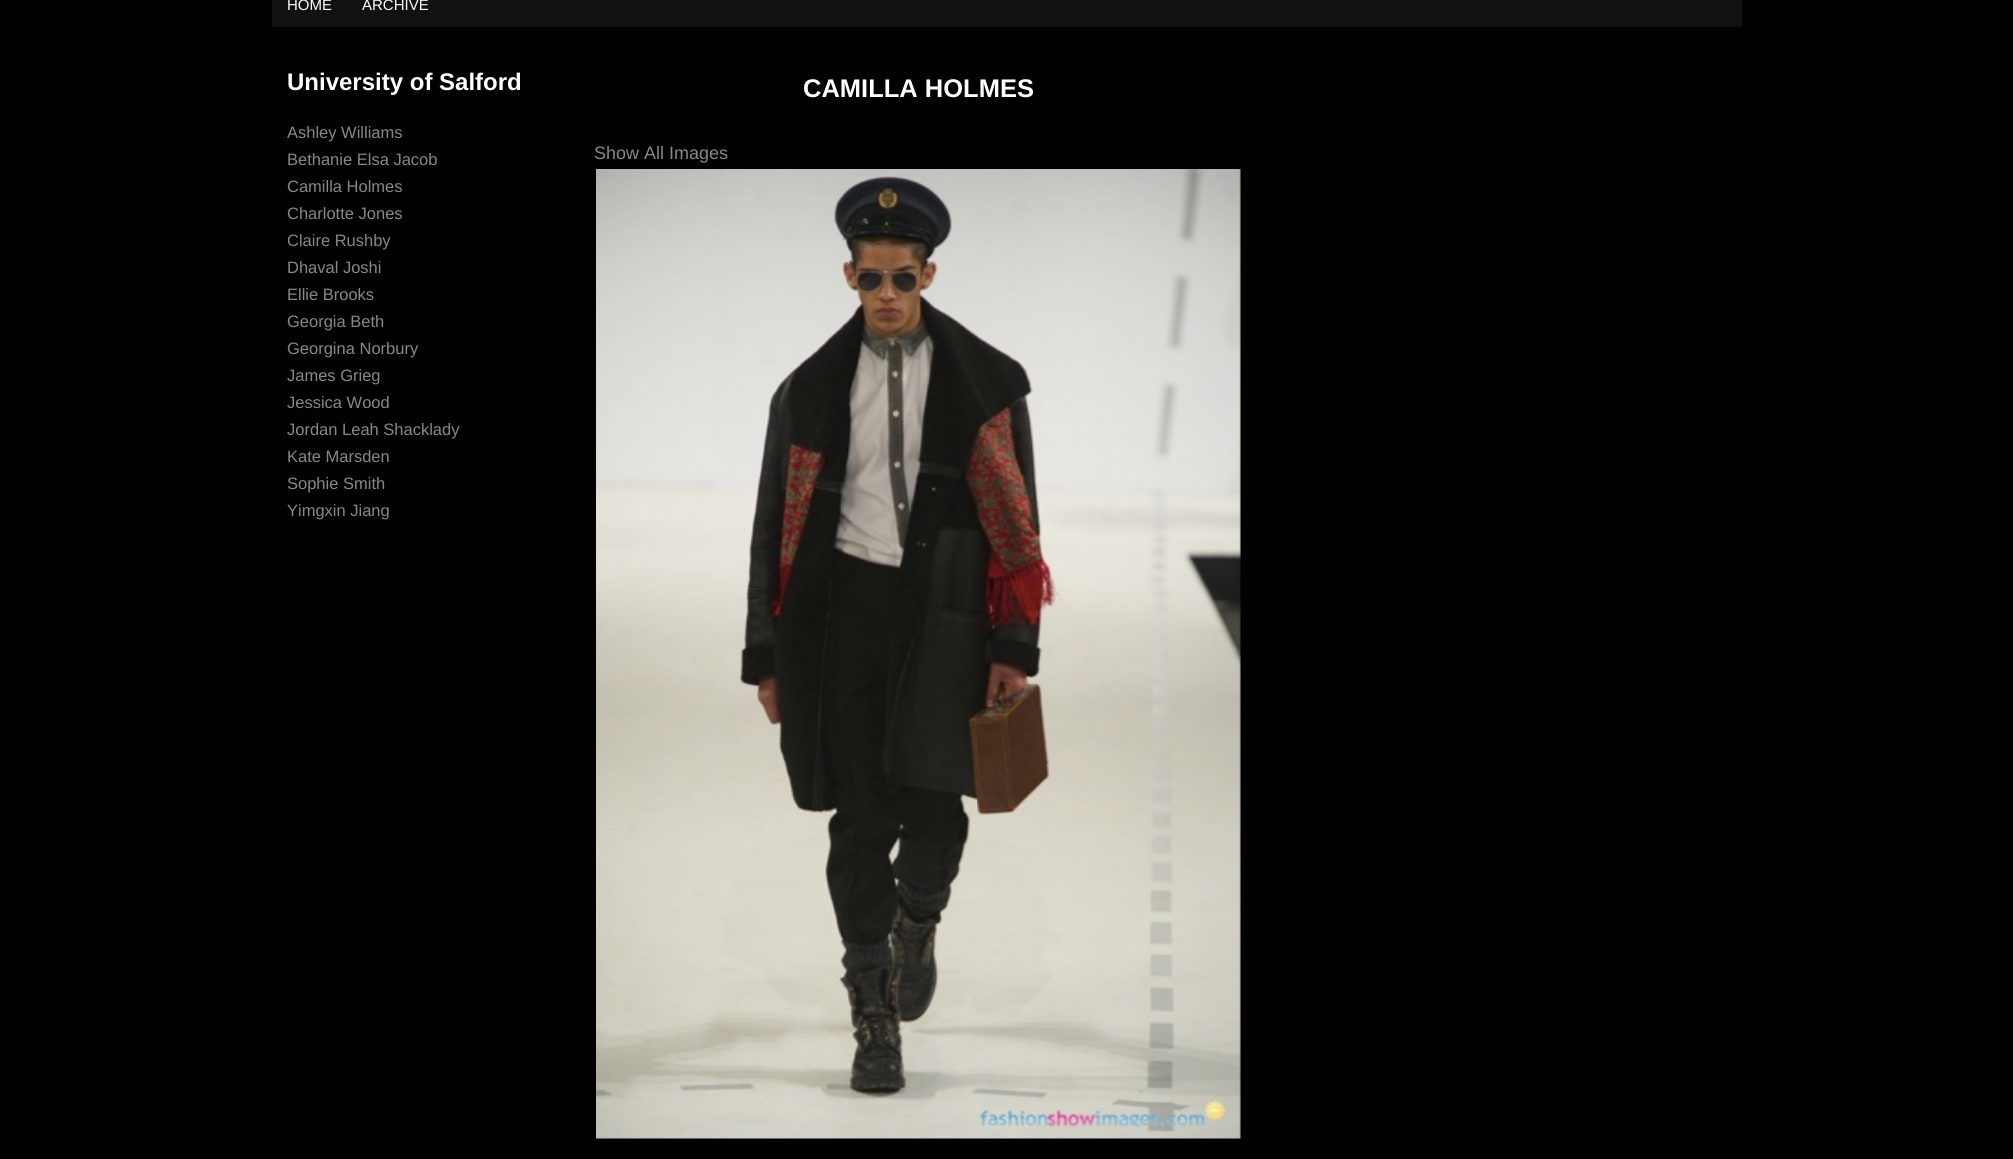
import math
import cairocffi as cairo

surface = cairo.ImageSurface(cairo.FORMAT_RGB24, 2013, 1159)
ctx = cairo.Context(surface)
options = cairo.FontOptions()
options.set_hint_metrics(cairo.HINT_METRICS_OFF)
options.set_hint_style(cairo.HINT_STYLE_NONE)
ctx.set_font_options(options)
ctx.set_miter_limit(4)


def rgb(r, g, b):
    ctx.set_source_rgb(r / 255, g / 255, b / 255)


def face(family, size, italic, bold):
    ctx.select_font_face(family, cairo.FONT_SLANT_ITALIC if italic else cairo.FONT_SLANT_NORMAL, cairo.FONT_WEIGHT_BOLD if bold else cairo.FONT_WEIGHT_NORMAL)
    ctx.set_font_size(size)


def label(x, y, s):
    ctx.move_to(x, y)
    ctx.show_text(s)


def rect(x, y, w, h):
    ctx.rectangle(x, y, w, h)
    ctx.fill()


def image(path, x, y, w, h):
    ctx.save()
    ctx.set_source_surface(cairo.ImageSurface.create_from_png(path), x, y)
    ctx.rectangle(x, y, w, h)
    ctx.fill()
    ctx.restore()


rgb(0, 0, 0)
ctx.paint()
rgb(17, 17, 17)
rect(272, 0, 1470, 27)
face('Liberation Sans', 15, 0, 0)
rgb(255, 255, 255)
label(287, 10, 'HOME')
label(362, 10, 'ARCHIVE')
face('Liberation Sans', 24, 0, 1)
label(287, 90, 'University of Salford')
face('Liberation Sans', 16.5, 0, 0)
rgb(136, 136, 136)
label(287, 138, 'Ashley Williams')
label(287, 165, 'Bethanie Elsa Jacob')
label(287, 192, 'Camilla Holmes')
label(287, 219, 'Charlotte Jones')
label(287, 246, 'Claire Rushby')
label(287, 273, 'Dhaval Joshi')
label(287, 300, 'Ellie Brooks')
label(287, 327, 'Georgia Beth')
label(287, 354, 'Georgina Norbury')
label(287, 381, 'James Grieg')
label(287, 408, 'Jessica Wood')
label(287, 435, 'Jordan Leah Shacklady')
label(287, 462, 'Kate Marsden')
label(287, 489, 'Sophie Smith')
label(287, 516, 'Yimgxin Jiang')
face('Liberation Sans', 25.5, 0, 1)
rgb(255, 255, 255)
label(803, 97, 'CAMILLA HOLMES')
face('Liberation Sans', 18, 0, 0)
rgb(136, 136, 136)
label(594, 159, 'Show All Images')
image('image0.png', 596, 169, 645, 970)
surface.write_to_png('render.png')
